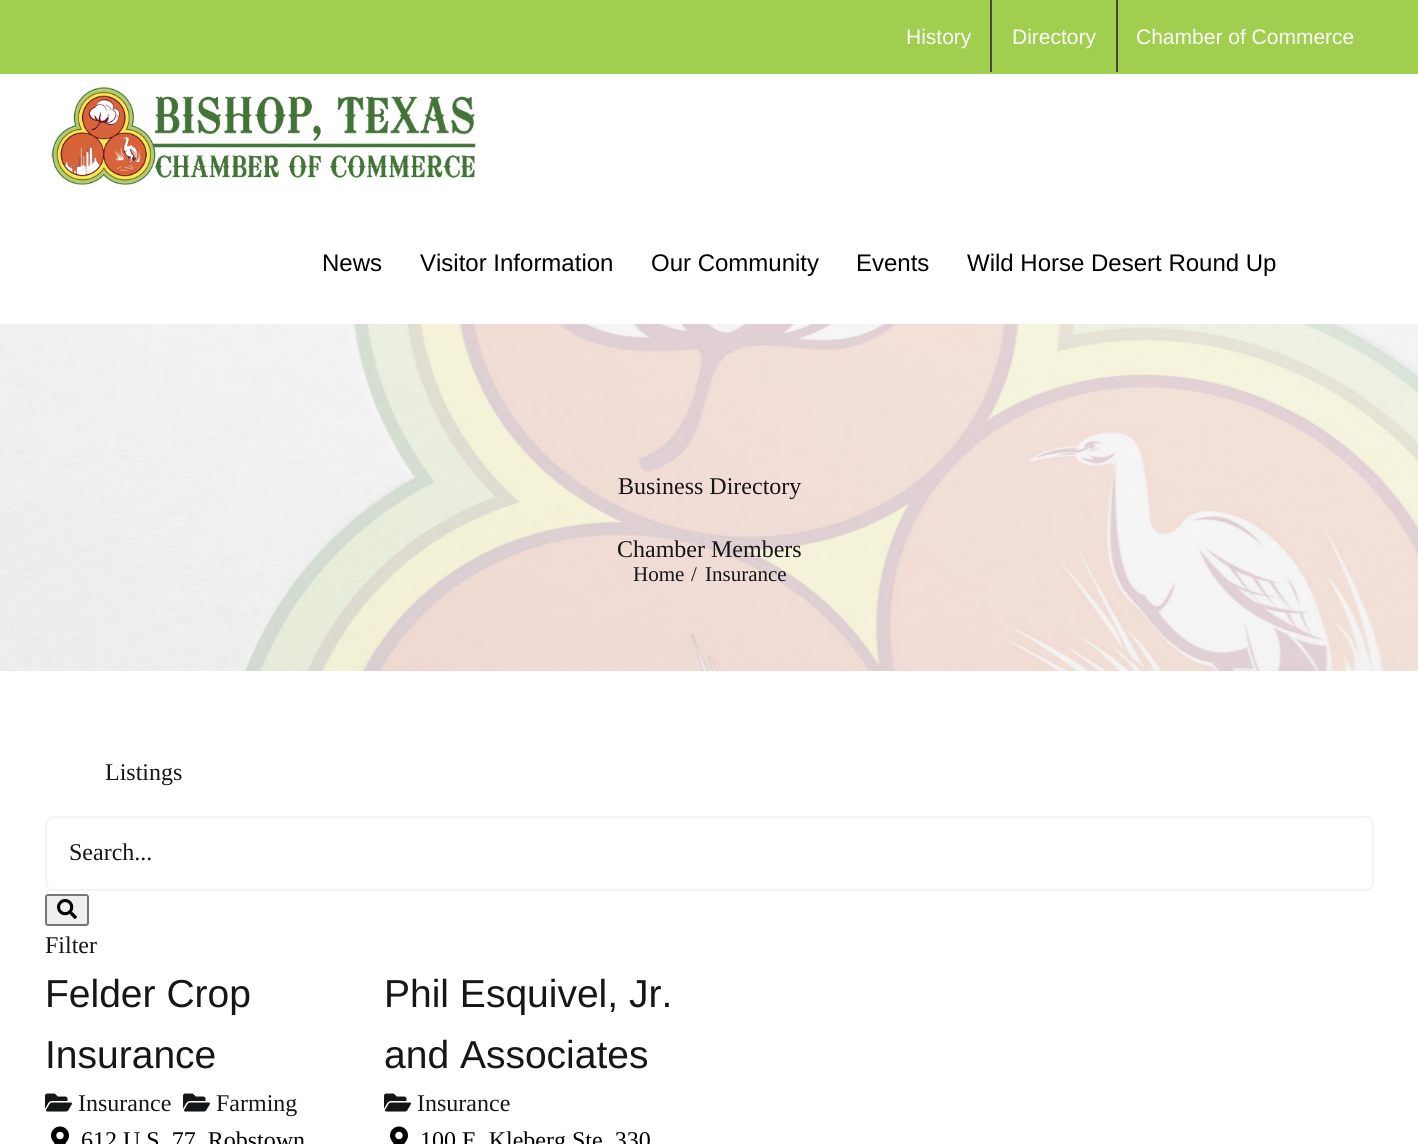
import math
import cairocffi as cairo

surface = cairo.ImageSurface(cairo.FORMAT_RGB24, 1418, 1144)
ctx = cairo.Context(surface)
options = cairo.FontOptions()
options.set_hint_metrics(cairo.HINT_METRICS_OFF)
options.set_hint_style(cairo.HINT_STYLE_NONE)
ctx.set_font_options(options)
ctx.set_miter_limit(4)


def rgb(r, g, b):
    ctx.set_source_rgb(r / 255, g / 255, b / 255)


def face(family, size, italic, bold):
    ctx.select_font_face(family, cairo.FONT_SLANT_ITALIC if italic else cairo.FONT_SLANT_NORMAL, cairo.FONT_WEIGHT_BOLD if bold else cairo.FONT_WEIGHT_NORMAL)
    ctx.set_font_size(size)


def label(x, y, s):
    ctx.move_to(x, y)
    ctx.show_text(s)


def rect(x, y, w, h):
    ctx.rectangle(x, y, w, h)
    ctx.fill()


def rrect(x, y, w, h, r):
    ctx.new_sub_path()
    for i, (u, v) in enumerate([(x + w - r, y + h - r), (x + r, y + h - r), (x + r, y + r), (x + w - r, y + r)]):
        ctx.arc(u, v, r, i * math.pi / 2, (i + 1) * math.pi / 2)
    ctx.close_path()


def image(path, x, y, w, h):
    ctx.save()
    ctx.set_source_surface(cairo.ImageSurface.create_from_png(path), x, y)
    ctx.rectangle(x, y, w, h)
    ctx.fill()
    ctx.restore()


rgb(255, 255, 255)
ctx.paint()
rgb(160, 206, 78)
rect(0, 0, 1418, 74)
face('Liberation Sans', 21, 0, 0)
rgb(255, 255, 255)
label(906, 44, 'History')
rgb(67, 69, 73)
rect(990, 0, 2, 72)
rgb(255, 255, 255)
label(1012, 44, 'Directory')
rgb(67, 69, 73)
rect(1116, 0, 2, 72)
rgb(255, 255, 255)
label(1136, 44, 'Chamber of Commerce')
image('image0.png', 51, 87, 425, 98)
face('Liberation Sans', 24, 0, 0)
rgb(0, 0, 0)
label(322, 271, 'News')
label(420, 271, 'Visitor Information')
label(651, 271, 'Our Community')
label(856, 271, 'Events')
label(967, 271, 'Wild Horse Desert Round Up')
image('image1.png', 0, 324, 1418, 347)
face('Liberation Serif', 24, 0, 0)
rgb(20, 22, 23)
label(618, 494, 'Business Directory')
label(617, 557, 'Chamber Members')
face('Liberation Serif', 21, 0, 0)
label(633, 581, 'Home')
label(691, 581, '/')
label(705, 581, 'Insurance')
face('Liberation Serif', 24, 0, 0)
label(105, 780, 'Listings')
rrect(46, 817, 1327, 73, 8)
rgb(242, 243, 245)
ctx.stroke()
rgb(20, 22, 23)
label(69, 860, 'Search...')
rgb(239, 239, 239)
rrect(46, 895, 42, 30, 2)
ctx.fill_preserve()
rgb(118, 118, 118)
ctx.stroke()
image('image2.png', 57, 899, 20, 20)
rgb(20, 22, 23)
label(45, 953, 'Filter')
face('Liberation Sans', 39, 0, 0)
label(45, 1007, 'Felder Crop')
label(45, 1068, 'Insurance')
image('image3.png', 45, 1093, 27, 19)
face('Liberation Serif', 24, 0, 0)
label(78, 1111, 'Insurance')
image('image3.png', 183, 1093, 27, 19)
label(216, 1111, 'Farming')
image('image4.png', 51, 1126, 18, 18)
rgb(0, 0, 0)
label(81, 1148, '612 U.S. 77, Robstown')
face('Liberation Sans', 39, 0, 0)
rgb(20, 22, 23)
label(384, 1007, 'Phil Esquivel, Jr.')
label(384, 1068, 'and Associates')
image('image3.png', 384, 1093, 27, 19)
face('Liberation Serif', 24, 0, 0)
label(417, 1111, 'Insurance')
image('image4.png', 390, 1126, 18, 18)
rgb(0, 0, 0)
label(420, 1148, '100 E. Kleberg Ste. 330')
surface.write_to_png('render.png')
